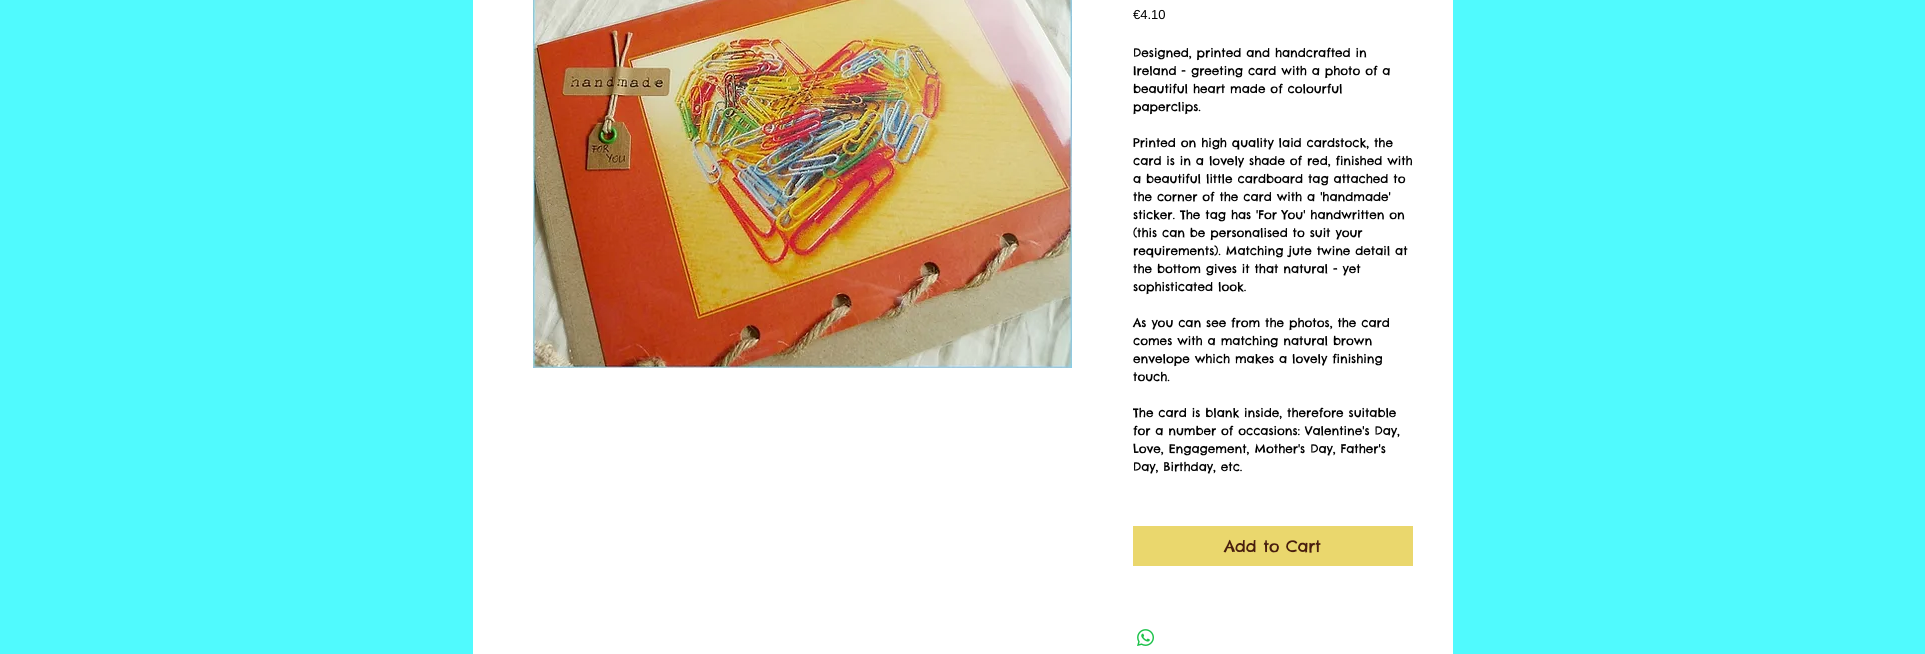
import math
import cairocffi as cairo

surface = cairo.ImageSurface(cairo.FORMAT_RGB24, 1925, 654)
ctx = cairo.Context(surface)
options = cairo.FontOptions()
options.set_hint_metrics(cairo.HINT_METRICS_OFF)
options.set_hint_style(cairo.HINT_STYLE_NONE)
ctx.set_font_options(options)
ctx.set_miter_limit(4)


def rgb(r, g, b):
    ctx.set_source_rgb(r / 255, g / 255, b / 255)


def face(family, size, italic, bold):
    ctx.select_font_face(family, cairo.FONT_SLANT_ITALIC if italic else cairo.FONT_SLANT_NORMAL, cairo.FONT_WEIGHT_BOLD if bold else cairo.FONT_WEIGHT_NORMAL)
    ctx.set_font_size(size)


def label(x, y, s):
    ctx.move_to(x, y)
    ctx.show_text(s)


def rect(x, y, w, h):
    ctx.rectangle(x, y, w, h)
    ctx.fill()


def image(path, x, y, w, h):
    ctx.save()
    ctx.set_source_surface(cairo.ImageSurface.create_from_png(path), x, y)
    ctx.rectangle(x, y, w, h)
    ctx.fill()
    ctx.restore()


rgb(80, 250, 254)
ctx.paint()
rgb(255, 255, 255)
rect(473, 0, 980, 654)
image('image0.png', 533, 0, 539, 368)
face('Liberation Sans', 13, 0, 0)
rgb(0, 0, 0)
label(1133, 19, '€4.10')
face('Chelsea Market', 12, 0, 0)
label(1133, 57, 'Designed, printed and handcrafted in')
label(1133, 75, 'Ireland - greeting card with a photo of a')
label(1133, 93, 'beautiful heart made of colourful')
label(1133, 111, 'paperclips.')
label(1133, 147, 'Printed on high quality laid cardstock, the')
label(1133, 165, 'card is in a lovely shade of red, finished with')
label(1133, 183, 'a beautiful little cardboard tag attached to')
label(1133, 201, 'the corner of the card with a \'handmade\'')
label(1133, 219, 'sticker. The tag has \'For You\' handwritten on')
label(1133, 237, '(this can be personalised to suit your')
label(1133, 255, 'requirements). Matching jute twine detail at')
label(1133, 273, 'the bottom gives it that natural - yet')
label(1133, 291, 'sophisticated look.')
label(1133, 327, 'As you can see from the photos, the card')
label(1133, 345, 'comes with a matching natural brown')
label(1133, 363, 'envelope which makes a lovely finishing')
label(1133, 381, 'touch.')
ctx.save()
ctx.rectangle(1133, 44, 280, 450)
ctx.clip()
label(1133, 417, 'The card is blank inside, therefore suitable')
ctx.restore()
label(1133, 435, 'for a number of occasions: Valentine\'s Day,')
label(1133, 453, 'Love, Engagement, Mother\'s Day, Father\'s')
label(1133, 471, 'Day, Birthday, etc.')
rgb(234, 215, 109)
rect(1133, 526, 280, 40)
face('Chelsea Market', 16, 0, 0)
rgb(72, 30, 14)
label(1224, 552, 'Add to Cart')
image('image1.png', 1137, 629, 17, 17)
surface.write_to_png('render.png')
